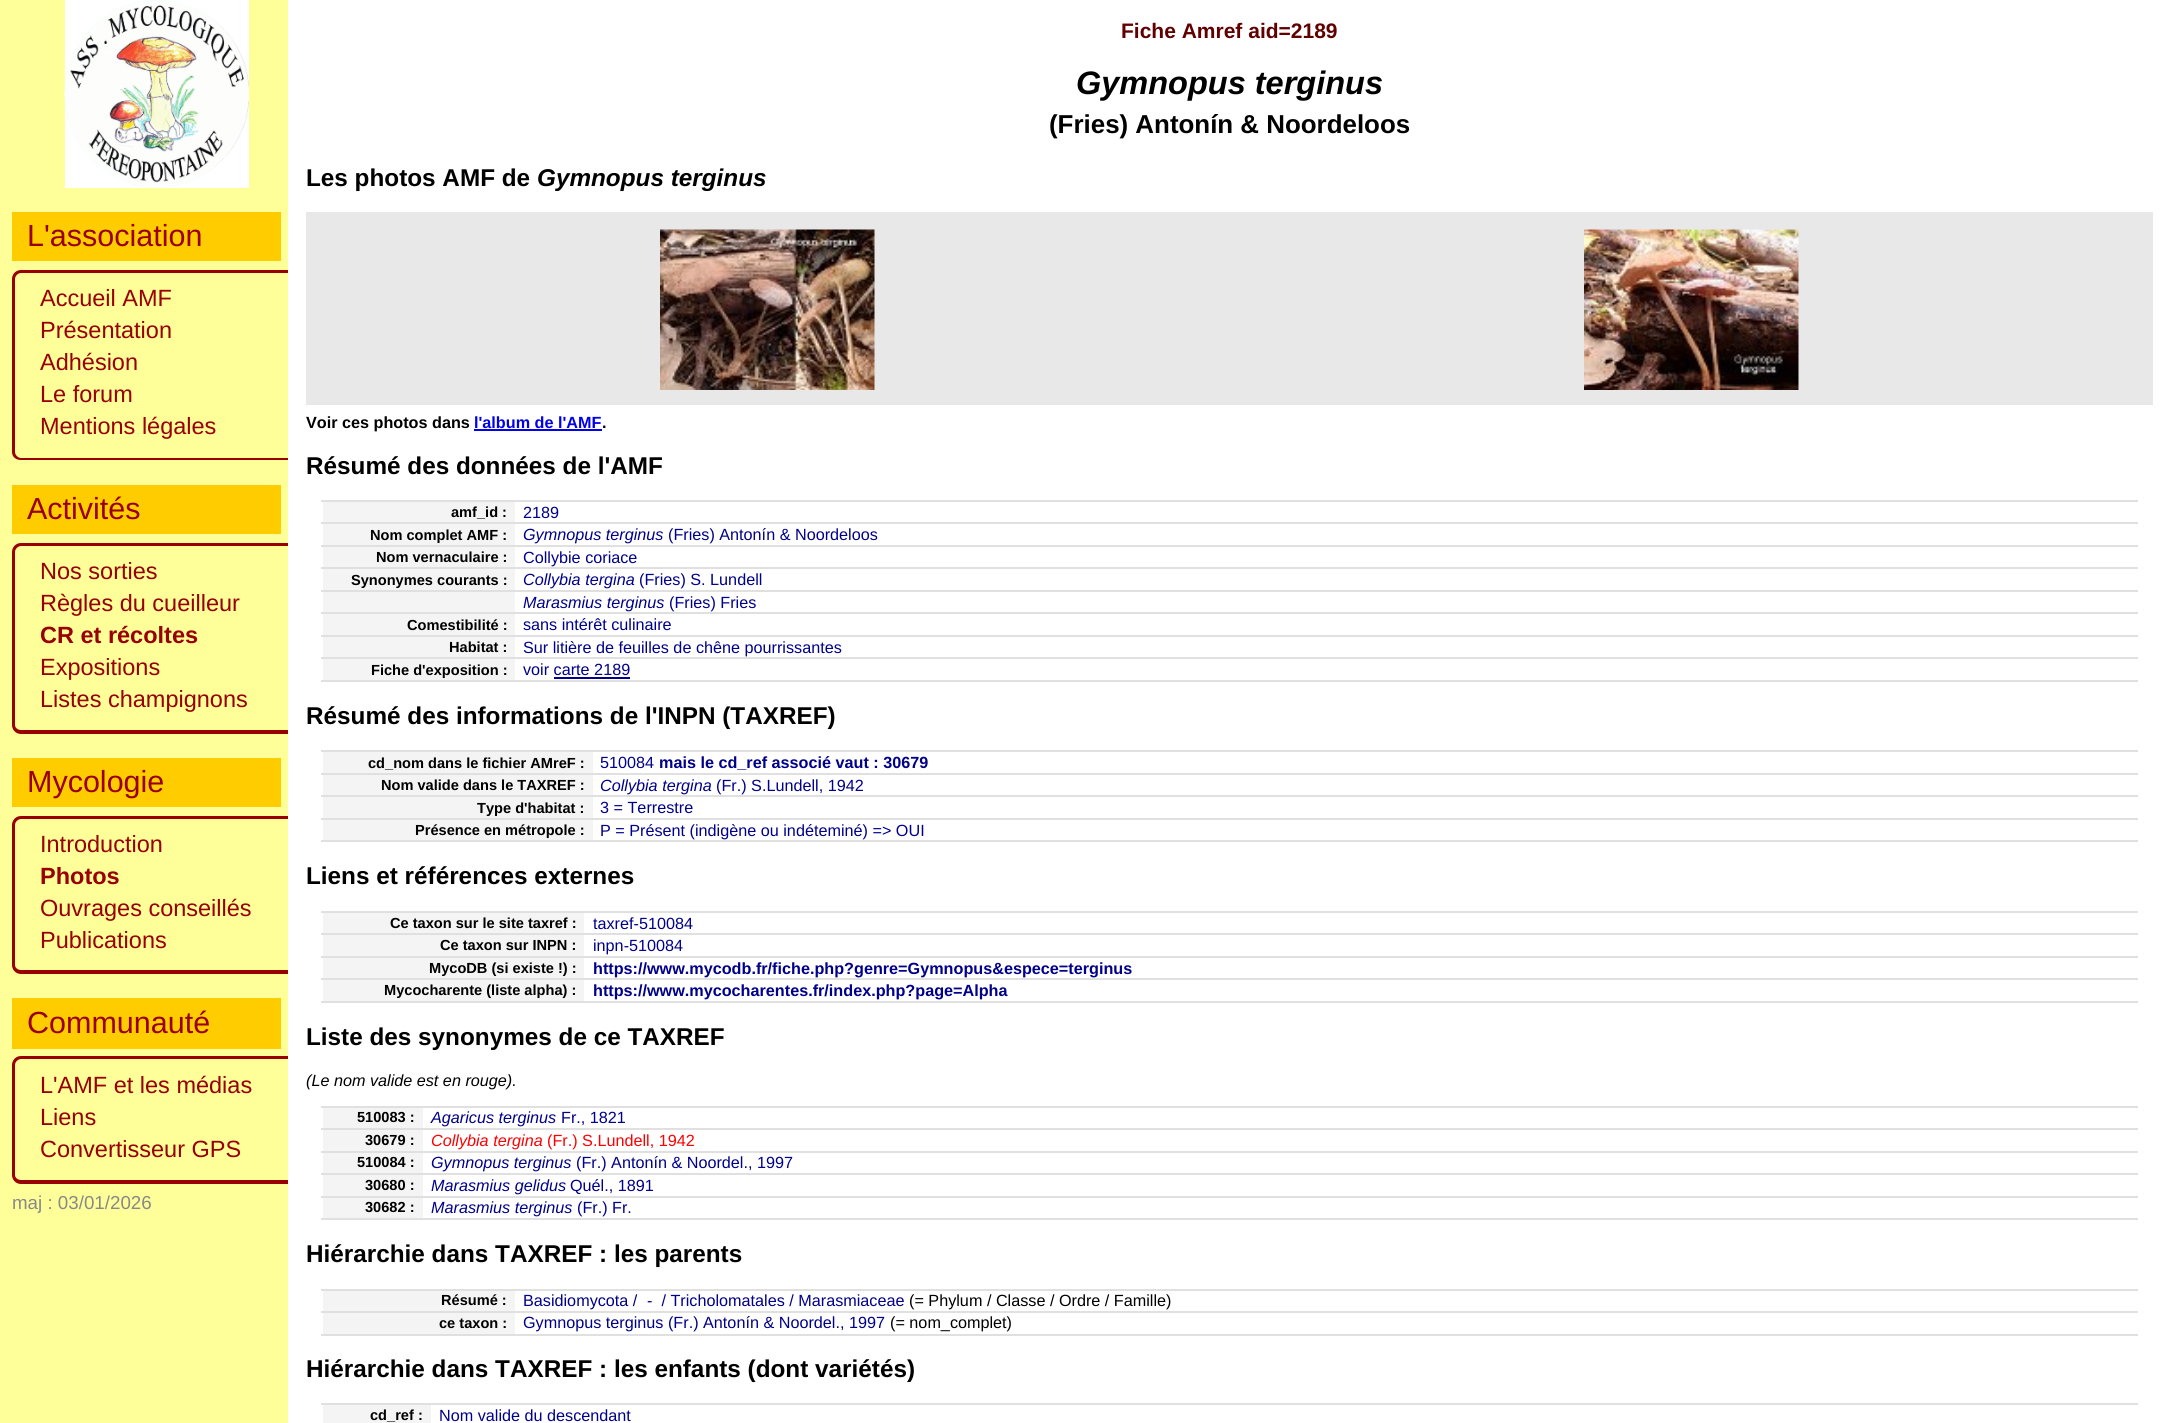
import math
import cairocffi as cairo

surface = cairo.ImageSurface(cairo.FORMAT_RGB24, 2170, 1423)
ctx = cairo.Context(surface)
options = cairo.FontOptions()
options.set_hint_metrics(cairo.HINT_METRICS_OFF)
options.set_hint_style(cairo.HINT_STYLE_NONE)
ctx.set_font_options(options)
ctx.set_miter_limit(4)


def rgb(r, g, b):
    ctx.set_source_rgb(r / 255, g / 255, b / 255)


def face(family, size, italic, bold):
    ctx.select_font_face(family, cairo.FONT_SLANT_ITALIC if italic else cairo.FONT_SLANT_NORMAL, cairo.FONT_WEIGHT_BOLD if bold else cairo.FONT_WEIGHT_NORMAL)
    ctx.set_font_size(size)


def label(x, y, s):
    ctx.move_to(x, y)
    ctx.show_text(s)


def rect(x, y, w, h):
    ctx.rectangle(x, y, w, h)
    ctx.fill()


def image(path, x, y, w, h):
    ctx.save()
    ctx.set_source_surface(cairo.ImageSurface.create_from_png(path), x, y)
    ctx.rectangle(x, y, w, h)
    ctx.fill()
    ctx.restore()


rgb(255, 255, 153)
ctx.paint()
rgb(255, 255, 255)
rect(65, 0, 184, 188)
image('image0.png', 64, 0, 185, 188)
rgb(255, 204, 0)
rect(12, 212, 269, 49)
face('Liberation Sans', 30.5, 0, 0)
rgb(153, 0, 0)
label(27, 246, 'L\'association')
ctx.set_fill_rule(cairo.FILL_RULE_EVEN_ODD)
ctx.new_path()
ctx.move_to(21, 270)
ctx.line_to(288, 270)
ctx.line_to(288, 460)
ctx.line_to(21, 460)
ctx.curve_to(16, 460, 12, 457, 12, 452)
ctx.line_to(12, 279)
ctx.curve_to(12, 274, 16, 270, 21, 270)
ctx.close_path()
ctx.move_to(21, 273)
ctx.line_to(288, 273)
ctx.line_to(288, 458)
ctx.line_to(21, 458)
ctx.curve_to(18, 458, 15, 455, 15, 452)
ctx.line_to(15, 279)
ctx.curve_to(15, 276, 18, 273, 21, 273)
ctx.close_path()
ctx.fill()
face('Liberation Sans', 23.5, 0, 0)
label(40, 306, 'Accueil AMF')
label(40, 338, 'Présentation')
label(40, 370, 'Adhésion')
label(40, 402, 'Le forum')
label(40, 434, 'Mentions légales')
rgb(255, 204, 0)
rect(12, 485, 269, 49)
face('Liberation Sans', 30.5, 0, 0)
rgb(153, 0, 0)
label(27, 519, 'Activités')
ctx.new_path()
ctx.move_to(21, 543)
ctx.line_to(288, 543)
ctx.line_to(288, 734)
ctx.line_to(21, 734)
ctx.curve_to(16, 734, 12, 730, 12, 725)
ctx.line_to(12, 552)
ctx.curve_to(12, 547, 16, 543, 21, 543)
ctx.close_path()
ctx.move_to(21, 546)
ctx.line_to(288, 546)
ctx.line_to(288, 730)
ctx.line_to(21, 730)
ctx.curve_to(18, 730, 15, 728, 15, 725)
ctx.line_to(15, 552)
ctx.curve_to(15, 549, 18, 546, 21, 546)
ctx.close_path()
ctx.fill()
face('Liberation Sans', 23.5, 0, 0)
label(40, 579, 'Nos sorties')
label(40, 611, 'Règles du cueilleur')
face('Liberation Sans', 23.5, 0, 1)
label(40, 643, 'CR et récoltes')
face('Liberation Sans', 23.5, 0, 0)
label(40, 675, 'Expositions')
label(40, 707, 'Listes champignons')
rgb(255, 204, 0)
rect(12, 758, 269, 49)
face('Liberation Sans', 30.5, 0, 0)
rgb(153, 0, 0)
label(27, 792, 'Mycologie')
ctx.new_path()
ctx.move_to(21, 816)
ctx.line_to(288, 816)
ctx.line_to(288, 974)
ctx.line_to(21, 974)
ctx.curve_to(16, 974, 12, 970, 12, 965)
ctx.line_to(12, 825)
ctx.curve_to(12, 820, 16, 816, 21, 816)
ctx.close_path()
ctx.move_to(21, 819)
ctx.line_to(288, 819)
ctx.line_to(288, 970)
ctx.line_to(21, 970)
ctx.curve_to(18, 970, 15, 968, 15, 965)
ctx.line_to(15, 825)
ctx.curve_to(15, 822, 18, 819, 21, 819)
ctx.close_path()
ctx.fill()
face('Liberation Sans', 23.5, 0, 0)
label(40, 852, 'Introduction')
face('Liberation Sans', 23.5, 0, 1)
label(40, 884, 'Photos')
face('Liberation Sans', 23.5, 0, 0)
label(40, 916, 'Ouvrages conseillés')
label(40, 948, 'Publications')
rgb(255, 204, 0)
rect(12, 998, 269, 51)
face('Liberation Sans', 30.5, 0, 0)
rgb(153, 0, 0)
label(27, 1033, 'Communauté')
ctx.new_path()
ctx.move_to(21, 1056)
ctx.line_to(288, 1056)
ctx.line_to(288, 1184)
ctx.line_to(21, 1184)
ctx.curve_to(16, 1184, 12, 1180, 12, 1175)
ctx.line_to(12, 1065)
ctx.curve_to(12, 1060, 16, 1056, 21, 1056)
ctx.close_path()
ctx.move_to(21, 1059)
ctx.line_to(288, 1059)
ctx.line_to(288, 1180)
ctx.line_to(21, 1180)
ctx.curve_to(18, 1180, 15, 1178, 15, 1175)
ctx.line_to(15, 1065)
ctx.curve_to(15, 1062, 18, 1059, 21, 1059)
ctx.close_path()
ctx.fill()
face('Liberation Sans', 23.5, 0, 0)
label(40, 1093, 'L\'AMF et les médias')
label(40, 1125, 'Liens')
label(40, 1157, 'Convertisseur GPS')
face('Liberation Sans', 18.75, 0, 0)
rgb(136, 136, 136)
label(12, 1209, 'maj : 03/01/2026')
rgb(255, 255, 255)
rect(288, 0, 1882, 1423)
face('Liberation Sans', 21, 0, 1)
rgb(96, 0, 0)
label(1121, 38, 'Fiche Amref aid=2189')
face('Liberation Sans', 32.5, 1, 1)
rgb(0, 0, 0)
label(1076, 94, 'Gymnopus terginus')
face('Liberation Sans', 25.9, 0, 1)
label(1049, 133, '(Fries) Antonín & Noordeloos')
face('Liberation Sans', 24.3, 0, 1)
label(306, 186, 'Les photos AMF de')
face('Liberation Sans', 24.3, 1, 1)
label(537, 186, 'Gymnopus terginus')
rgb(232, 232, 232)
rect(306, 212, 1847, 193)
image('image1.png', 660, 229, 215, 161)
image('image2.png', 1584, 229, 215, 161)
face('Liberation Sans', 16.2, 0, 1)
rgb(0, 0, 0)
label(306, 428, 'Voir ces photos dans')
rgb(0, 0, 238)
label(474, 428, 'l\'album de l\'AMF')
rgb(0, 0, 0)
label(602, 428, '.')
rgb(0, 0, 238)
rect(474, 429, 128, 2)
face('Liberation Sans', 24.3, 0, 1)
rgb(0, 0, 0)
label(306, 474, 'Résumé des données de l\'AMF')
rgb(224, 224, 224)
rect(321, 500, 1817, 2)
rgb(244, 244, 244)
rect(323, 502, 192, 20)
face('Liberation Sans', 14.6, 0, 1)
rgb(0, 0, 0)
label(451, 517, 'amf_id :')
face('Liberation Sans', 16.2, 0, 0)
rgb(0, 0, 139)
label(523, 518, '2189')
rgb(224, 224, 224)
rect(321, 522, 1817, 2)
rgb(244, 244, 244)
rect(323, 524, 192, 21)
face('Liberation Sans', 14.6, 0, 1)
rgb(0, 0, 0)
label(370, 540, 'Nom complet AMF :')
face('Liberation Sans', 16.2, 1, 0)
rgb(0, 0, 139)
label(523, 540, 'Gymnopus terginus')
face('Liberation Sans', 16.2, 0, 0)
label(668, 540, '(Fries) Antonín & Noordeloos')
rgb(224, 224, 224)
rect(321, 545, 1817, 2)
rgb(244, 244, 244)
rect(323, 547, 192, 20)
face('Liberation Sans', 14.6, 0, 1)
rgb(0, 0, 0)
label(376, 562, 'Nom vernaculaire :')
face('Liberation Sans', 16.2, 0, 0)
rgb(0, 0, 139)
label(523, 563, 'Collybie coriace')
rgb(224, 224, 224)
rect(321, 567, 1817, 2)
rgb(244, 244, 244)
rect(323, 569, 192, 21)
face('Liberation Sans', 14.6, 0, 1)
rgb(0, 0, 0)
label(351, 585, 'Synonymes courants :')
face('Liberation Sans', 16.2, 1, 0)
rgb(0, 0, 139)
label(523, 585, 'Collybia tergina')
face('Liberation Sans', 16.2, 0, 0)
label(639, 585, '(Fries) S. Lundell')
rgb(224, 224, 224)
rect(321, 590, 1817, 2)
rgb(244, 244, 244)
rect(323, 592, 192, 20)
face('Liberation Sans', 16.2, 1, 0)
rgb(0, 0, 139)
label(523, 608, 'Marasmius terginus')
face('Liberation Sans', 16.2, 0, 0)
label(669, 608, '(Fries) Fries')
rgb(224, 224, 224)
rect(321, 612, 1817, 2)
rgb(244, 244, 244)
rect(323, 614, 192, 21)
face('Liberation Sans', 14.6, 0, 1)
rgb(0, 0, 0)
label(407, 630, 'Comestibilité :')
face('Liberation Sans', 16.2, 0, 0)
rgb(0, 0, 139)
label(523, 630, 'sans intérêt culinaire')
rgb(224, 224, 224)
rect(321, 635, 1817, 2)
rgb(244, 244, 244)
rect(323, 637, 192, 20)
face('Liberation Sans', 14.6, 0, 1)
rgb(0, 0, 0)
label(449, 652, 'Habitat :')
face('Liberation Sans', 16.2, 0, 0)
rgb(0, 0, 139)
label(523, 653, 'Sur litière de feuilles de chêne pourrissantes')
rgb(224, 224, 224)
rect(321, 657, 1817, 2)
rect(321, 680, 1817, 2)
rgb(244, 244, 244)
rect(323, 659, 192, 21)
face('Liberation Sans', 14.6, 0, 1)
rgb(0, 0, 0)
label(371, 675, 'Fiche d\'exposition :')
face('Liberation Sans', 16.2, 0, 0)
rgb(0, 0, 139)
label(523, 675, 'voir carte 2189')
rect(554, 677, 76, 2)
face('Liberation Sans', 24.3, 0, 1)
rgb(0, 0, 0)
label(306, 724, 'Résumé des informations de l\'INPN (TAXREF)')
rgb(224, 224, 224)
rect(321, 750, 1817, 2)
rgb(244, 244, 244)
rect(323, 752, 270, 21)
face('Liberation Sans', 14.6, 0, 1)
rgb(0, 0, 0)
label(368, 768, 'cd_nom dans le fichier AMreF :')
face('Liberation Sans', 16.2, 0, 0)
rgb(0, 0, 139)
label(600, 768, '510084')
face('Liberation Sans', 16.2, 0, 1)
label(659, 768, 'mais le cd_ref associé vaut : 30679')
rgb(224, 224, 224)
rect(321, 773, 1817, 2)
rgb(244, 244, 244)
rect(323, 775, 270, 20)
face('Liberation Sans', 14.6, 0, 1)
rgb(0, 0, 0)
label(381, 790, 'Nom valide dans le TAXREF :')
face('Liberation Sans', 16.2, 1, 0)
rgb(0, 0, 139)
label(600, 791, 'Collybia tergina')
face('Liberation Sans', 16.2, 0, 0)
label(716, 791, '(Fr.) S.Lundell, 1942')
rgb(224, 224, 224)
rect(321, 795, 1817, 2)
rgb(244, 244, 244)
rect(323, 797, 270, 21)
face('Liberation Sans', 14.6, 0, 1)
rgb(0, 0, 0)
label(477, 813, 'Type d\'habitat :')
face('Liberation Sans', 16.2, 0, 0)
rgb(0, 0, 139)
label(600, 813, '3 = Terrestre')
rgb(224, 224, 224)
rect(321, 818, 1817, 2)
rect(321, 840, 1817, 2)
rgb(244, 244, 244)
rect(323, 820, 270, 20)
face('Liberation Sans', 14.6, 0, 1)
rgb(0, 0, 0)
label(415, 835, 'Présence en métropole :')
face('Liberation Sans', 16.2, 0, 0)
rgb(0, 0, 139)
label(600, 836, 'P = Présent (indigène ou indéteminé) => OUI')
face('Liberation Sans', 24.3, 0, 1)
rgb(0, 0, 0)
label(306, 884, 'Liens et références externes')
rgb(224, 224, 224)
rect(321, 911, 1817, 2)
rgb(244, 244, 244)
rect(323, 913, 261, 20)
face('Liberation Sans', 14.6, 0, 1)
rgb(0, 0, 0)
label(390, 928, 'Ce taxon sur le site taxref :')
face('Liberation Sans', 16.2, 0, 0)
rgb(0, 0, 139)
label(593, 929, 'taxref-510084')
rgb(224, 224, 224)
rect(321, 933, 1817, 2)
rgb(244, 244, 244)
rect(323, 935, 261, 21)
face('Liberation Sans', 14.6, 0, 1)
rgb(0, 0, 0)
label(440, 950, 'Ce taxon sur INPN :')
face('Liberation Sans', 16.2, 0, 0)
rgb(0, 0, 139)
label(593, 951, 'inpn-510084')
rgb(224, 224, 224)
rect(321, 956, 1817, 2)
rgb(244, 244, 244)
rect(323, 958, 261, 20)
face('Liberation Sans', 14.6, 0, 1)
rgb(0, 0, 0)
label(429, 973, 'MycoDB (si existe !) :')
face('Liberation Sans', 16.2, 0, 1)
rgb(0, 0, 139)
label(593, 974, 'https://www.mycodb.fr/fiche.php?genre=Gymnopus&espece=terginus')
rgb(224, 224, 224)
rect(321, 978, 1817, 2)
rect(321, 1001, 1817, 2)
rgb(244, 244, 244)
rect(323, 980, 261, 21)
face('Liberation Sans', 14.6, 0, 1)
rgb(0, 0, 0)
label(384, 995, 'Mycocharente (liste alpha) :')
face('Liberation Sans', 16.2, 0, 1)
rgb(0, 0, 139)
label(593, 996, 'https://www.mycocharentes.fr/index.php?page=Alpha')
face('Liberation Sans', 24.3, 0, 1)
rgb(0, 0, 0)
label(306, 1045, 'Liste des synonymes de ce TAXREF')
face('Liberation Sans', 16.2, 1, 0)
label(306, 1086, '(Le nom valide est en rouge).')
rgb(224, 224, 224)
rect(321, 1106, 1817, 2)
rgb(244, 244, 244)
rect(323, 1108, 100, 20)
face('Liberation Sans', 14.6, 0, 1)
rgb(0, 0, 0)
label(357, 1122, '510083 :')
face('Liberation Sans', 16.2, 1, 0)
rgb(0, 0, 139)
label(431, 1123, 'Agaricus terginus')
face('Liberation Sans', 16.2, 0, 0)
label(561, 1123, 'Fr., 1821')
rgb(224, 224, 224)
rect(321, 1128, 1817, 2)
rgb(244, 244, 244)
rect(323, 1130, 100, 21)
face('Liberation Sans', 14.6, 0, 1)
rgb(0, 0, 0)
label(365, 1145, '30679 :')
face('Liberation Sans', 16.2, 1, 0)
rgb(255, 0, 0)
label(431, 1146, 'Collybia tergina')
face('Liberation Sans', 16.2, 0, 0)
label(547, 1146, '(Fr.) S.Lundell, 1942')
rgb(224, 224, 224)
rect(321, 1151, 1817, 2)
rgb(244, 244, 244)
rect(323, 1153, 100, 20)
face('Liberation Sans', 14.6, 0, 1)
rgb(0, 0, 0)
label(357, 1167, '510084 :')
face('Liberation Sans', 16.2, 1, 0)
rgb(0, 0, 139)
label(431, 1168, 'Gymnopus terginus')
face('Liberation Sans', 16.2, 0, 0)
label(576, 1168, '(Fr.) Antonín & Noordel., 1997')
rgb(224, 224, 224)
rect(321, 1173, 1817, 2)
rgb(244, 244, 244)
rect(323, 1175, 100, 21)
face('Liberation Sans', 14.6, 0, 1)
rgb(0, 0, 0)
label(365, 1190, '30680 :')
face('Liberation Sans', 16.2, 1, 0)
rgb(0, 0, 139)
label(431, 1191, 'Marasmius gelidus')
face('Liberation Sans', 16.2, 0, 0)
label(570, 1191, 'Quél., 1891')
rgb(224, 224, 224)
rect(321, 1196, 1817, 2)
rect(321, 1218, 1817, 2)
rgb(244, 244, 244)
rect(323, 1198, 100, 20)
face('Liberation Sans', 14.6, 0, 1)
rgb(0, 0, 0)
label(365, 1212, '30682 :')
face('Liberation Sans', 16.2, 1, 0)
rgb(0, 0, 139)
label(431, 1213, 'Marasmius terginus')
face('Liberation Sans', 16.2, 0, 0)
label(577, 1213, '(Fr.) Fr.')
face('Liberation Sans', 24.3, 0, 1)
rgb(0, 0, 0)
label(306, 1262, 'Hiérarchie dans TAXREF : les parents')
rgb(224, 224, 224)
rect(321, 1289, 1817, 2)
rgb(244, 244, 244)
rect(323, 1291, 192, 20)
face('Liberation Sans', 14.6, 0, 1)
rgb(0, 0, 0)
label(441, 1305, 'Résumé :')
face('Liberation Sans', 16.2, 0, 0)
rgb(0, 0, 139)
label(523, 1306, 'Basidiomycota /')
label(647, 1306, '-  / Tricholomatales / Marasmiaceae')
rgb(0, 0, 0)
label(909, 1306, '(= Phylum / Classe / Ordre / Famille)')
rgb(224, 224, 224)
rect(321, 1311, 1817, 2)
rect(321, 1334, 1817, 2)
rgb(244, 244, 244)
rect(323, 1313, 192, 21)
face('Liberation Sans', 14.6, 0, 1)
rgb(0, 0, 0)
label(439, 1328, 'ce taxon :')
face('Liberation Sans', 16.2, 0, 0)
rgb(0, 0, 139)
label(523, 1328, 'Gymnopus terginus (Fr.) Antonín & Noordel., 1997')
rgb(0, 0, 0)
label(890, 1328, '(= nom_complet)')
face('Liberation Sans', 24.3, 0, 1)
label(306, 1377, 'Hiérarchie dans TAXREF : les enfants (dont variétés)')
rgb(224, 224, 224)
rect(321, 1403, 1817, 2)
rgb(244, 244, 244)
rect(323, 1405, 108, 18)
face('Liberation Sans', 14.6, 0, 1)
rgb(0, 0, 0)
label(370, 1420, 'cd_ref :')
face('Liberation Sans', 16.2, 0, 0)
rgb(0, 0, 139)
label(439, 1421, 'Nom valide du descendant')
surface.write_to_png('render.png')
